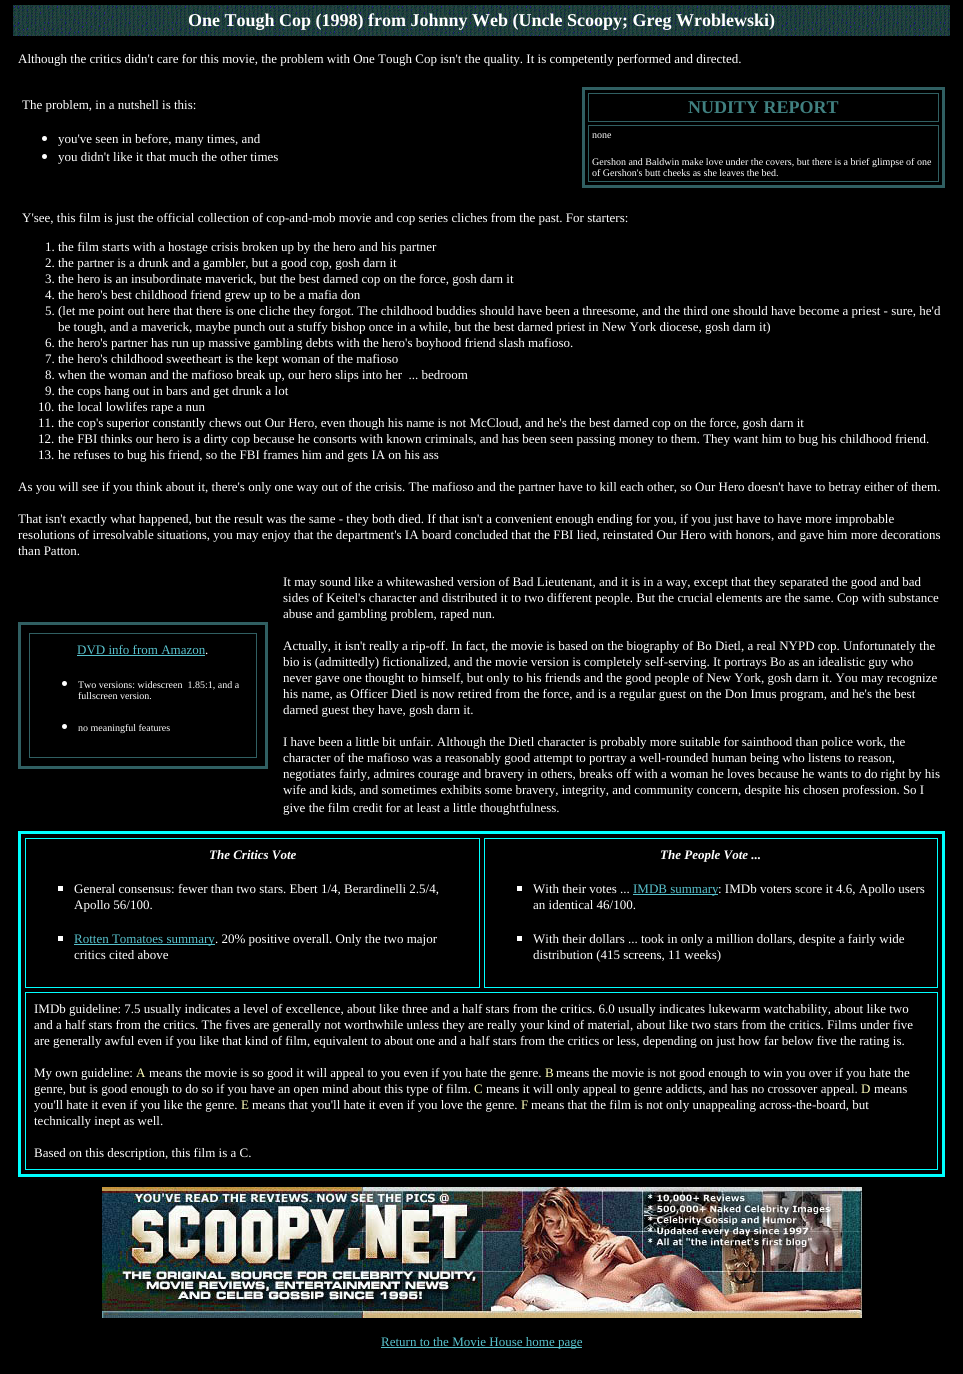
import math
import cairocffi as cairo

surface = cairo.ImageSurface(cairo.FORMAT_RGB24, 963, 1374)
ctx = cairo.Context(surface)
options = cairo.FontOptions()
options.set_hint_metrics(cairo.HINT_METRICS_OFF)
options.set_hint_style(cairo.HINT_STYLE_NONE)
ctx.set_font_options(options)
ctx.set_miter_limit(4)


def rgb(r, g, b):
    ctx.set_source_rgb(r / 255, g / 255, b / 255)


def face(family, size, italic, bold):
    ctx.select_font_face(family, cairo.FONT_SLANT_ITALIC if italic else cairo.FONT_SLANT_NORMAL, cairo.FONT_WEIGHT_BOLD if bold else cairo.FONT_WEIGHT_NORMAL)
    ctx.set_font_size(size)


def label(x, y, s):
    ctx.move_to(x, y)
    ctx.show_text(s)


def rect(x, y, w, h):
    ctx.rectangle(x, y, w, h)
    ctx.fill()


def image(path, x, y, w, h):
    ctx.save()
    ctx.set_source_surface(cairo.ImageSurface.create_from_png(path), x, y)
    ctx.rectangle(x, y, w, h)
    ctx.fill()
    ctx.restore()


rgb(0, 0, 0)
ctx.paint()
image('image0.png', 13, 5, 937, 31)
face('Liberation Serif', 18, 0, 1)
rgb(255, 255, 255)
label(188, 26, 'One Tough Cop (1998) from Johnny Web (Uncle Scoopy; Greg Wroblewski)')
face('Liberation Serif', 13, 0, 0)
label(18, 63, 'Although the critics didn\'t care for this movie, the problem with One Tough Cop isn\'t the quality. It is competently performed and directed.')
label(22, 109, 'The problem, in a nutshell is this:')
ctx.new_path()
ctx.arc(44.5, 138.5, 2.5, 0, 2 * math.pi)
ctx.fill()
label(58, 143, 'you\'ve seen in before, many times, and')
ctx.new_path()
ctx.arc(44.5, 156.5, 2.5, 0, 2 * math.pi)
ctx.fill()
label(58, 161, 'you didn\'t like it that much the other times')
ctx.rectangle(583.5, 88.5, 360, 98)
rgb(48, 95, 98)
ctx.set_line_width(3)
ctx.stroke()
ctx.rectangle(588.5, 93.5, 350, 28)
ctx.set_line_width(1)
ctx.stroke()
face('Liberation Serif', 18, 0, 1)
rgb(64, 128, 128)
label(688, 113, 'NUDITY REPORT')
ctx.rectangle(588.5, 125.5, 350, 56)
rgb(48, 95, 98)
ctx.stroke()
face('Liberation Serif', 10, 0, 0)
rgb(255, 255, 255)
label(592, 138, 'none')
label(592, 165, 'Gershon and Baldwin make love under the covers, but there is a brief glimpse of one')
label(592, 176, 'of Gershon\'s butt cheeks as she leaves the bed.')
face('Liberation Serif', 13, 0, 0)
label(22, 222, 'Y\'see, this film is just the official collection of cop-and-mob movie and cop series cliches from the past. For starters:')
label(45, 251, '1.')
label(58, 251, 'the film starts with a hostage crisis broken up by the hero and his partner')
label(45, 267, '2.')
label(58, 267, 'the partner is a drunk and a gambler, but a good cop, gosh darn it')
label(45, 283, '3.')
label(58, 283, 'the hero is an insubordinate maverick, but the best darned cop on the force, gosh darn it')
label(45, 299, '4.')
label(58, 299, 'the hero\'s best childhood friend grew up to be a mafia don')
label(45, 315, '5.')
label(58, 315, '(let me point out here that there is one cliche they forgot. The childhood buddies should have been a threesome, and the third one should have become a priest - sure, he\'d')
label(58, 331, 'be tough, and a maverick, maybe punch out a stuffy bishop once in a while, but the best darned priest in New York diocese, gosh darn it)')
label(45, 347, '6.')
label(58, 347, 'the hero\'s partner has run up massive gambling debts with the hero\'s boyhood friend slash mafioso.')
label(45, 363, '7.')
label(58, 363, 'the hero\'s childhood sweetheart is the kept woman of the mafioso')
label(45, 379, '8.')
label(58, 379, 'when the woman and the mafioso break up, our hero slips into her  ... bedroom')
label(45, 395, '9.')
label(58, 395, 'the cops hang out in bars and get drunk a lot')
label(38, 411, '10.')
label(58, 411, 'the local lowlifes rape a nun')
label(38, 427, '11.')
label(58, 427, 'the cop\'s superior constantly chews out Our Hero, even though his name is not McCloud, and he\'s the best darned cop on the force, gosh darn it')
label(38, 443, '12.')
label(58, 443, 'the FBI thinks our hero is a dirty cop because he consorts with known criminals, and has been seen passing money to them. They want him to bug his childhood friend.')
label(38, 459, '13.')
label(58, 459, 'he refuses to bug his friend, so the FBI frames him and gets IA on his ass')
label(18, 491, 'As you will see if you think about it, there\'s only one way out of the crisis. The mafioso and the partner have to kill each other, so Our Hero doesn\'t have to betray either of them.')
label(18, 523, 'That isn\'t exactly what happened, but the result was the same - they both died. If that isn\'t a convenient enough ending for you, if you just have to have more improbable')
label(18, 539, 'resolutions of irresolvable situations, you may enjoy that the department\'s IA board concluded that the FBI lied, reinstated Our Hero with honors, and gave him more decorations')
label(18, 555, 'than Patton.')
ctx.rectangle(19.5, 623.5, 247, 144)
rgb(48, 95, 98)
ctx.set_line_width(3)
ctx.stroke()
ctx.rectangle(29.5, 633.5, 227, 124)
ctx.set_line_width(1)
ctx.stroke()
rgb(88, 194, 205)
label(77, 654, 'DVD info from Amazon')
rect(77, 655, 128, 1)
rgb(255, 255, 255)
label(205, 654, '.')
ctx.new_path()
ctx.arc(64.5, 683.5, 2.5, 0, 2 * math.pi)
ctx.fill()
face('Liberation Serif', 10, 0, 0)
label(78, 688, 'Two versions: widescreen  1.85:1, and a')
label(78, 699, 'fullscreen version.')
ctx.new_path()
ctx.arc(64.5, 726.5, 2.5, 0, 2 * math.pi)
ctx.fill()
label(78, 731, 'no meaningful features')
face('Liberation Serif', 13, 0, 0)
label(283, 586, 'It may sound like a whitewashed version of Bad Lieutenant, and it is in a way, except that they separated the good and bad')
label(283, 602, 'sides of Keitel\'s character and distributed it to two different people. But the crucial elements are the same. Cop with substance')
label(283, 618, 'abuse and gambling problem, raped nun.')
label(283, 650, 'Actually, it isn\'t really a rip-off. In fact, the movie is based on the biography of Bo Dietl, a real NYPD cop. Unfortunately the')
label(283, 666, 'bio is (admittedly) fictionalized, and the movie version is completely self-serving. It portrays Bo as an idealistic guy who')
label(283, 682, 'never gave one thought to himself, but only to his friends and the good people of New York, gosh darn it. You may recognize')
label(283, 698, 'his name, as Officer Dietl is now retired from the force, and is a regular guest on the Don Imus program, and he\'s the best')
label(283, 714, 'darned guest they have, gosh darn it.')
label(283, 746, 'I have been a little bit unfair. Although the Dietl character is probably more suitable for sainthood than police work, the')
label(283, 762, 'character of the mafioso was a reasonably good attempt to portray a well-rounded human being who listens to reason,')
label(283, 778, 'negotiates fairly, admires courage and bravery in others, breaks off with a woman he loves because he wants to do right by his')
label(283, 794, 'wife and kids, and sometimes exhibits some bravery, integrity, and community concern, despite his chosen profession. So I')
label(283, 812, 'give the film credit for at least a little thoughtfulness.')
ctx.rectangle(19.5, 832.5, 924, 343)
rgb(0, 255, 255)
ctx.set_line_width(3)
ctx.stroke()
ctx.rectangle(25.5, 838.5, 454, 149)
ctx.set_line_width(1)
ctx.stroke()
face('Liberation Serif', 13, 1, 1)
rgb(255, 255, 255)
label(209, 859, 'The Critics Vote')
rect(58, 886, 5, 5)
face('Liberation Serif', 13, 0, 0)
label(74, 893, 'General consensus: fewer than two stars. Ebert 1/4, Berardinelli 2.5/4,')
label(74, 909, 'Apollo 56/100.')
rect(58, 936, 5, 5)
rgb(88, 194, 205)
rect(74, 944, 141, 1)
label(74, 943, 'Rotten Tomatoes summary')
rgb(255, 255, 255)
label(215, 943, '. 20% positive overall. Only the two major')
label(74, 959, 'critics cited above')
ctx.rectangle(484.5, 838.5, 453, 149)
rgb(0, 255, 255)
ctx.stroke()
face('Liberation Serif', 13, 1, 1)
rgb(255, 255, 255)
label(660, 859, 'The People Vote ...')
rect(517, 886, 5, 5)
face('Liberation Serif', 13, 0, 0)
label(533, 893, 'With their votes ...')
rgb(88, 194, 205)
rect(633, 894, 85, 1)
label(633, 893, 'IMDB summary')
rgb(255, 255, 255)
label(718, 893, ': IMDb voters score it 4.6, Apollo users')
label(533, 909, 'an identical 46/100.')
rect(517, 936, 5, 5)
label(533, 943, 'With their dollars ... took in only a million dollars, despite a fairly wide')
label(533, 959, 'distribution (415 screens, 11 weeks)')
ctx.rectangle(25.5, 992.5, 912, 177)
rgb(0, 255, 255)
ctx.stroke()
rgb(255, 255, 255)
label(34, 1013, 'IMDb guideline: 7.5 usually indicates a level of excellence, about like three and a half stars from the critics. 6.0 usually indicates lukewarm watchability, about like two')
label(34, 1029, 'and a half stars from the critics. The fives are generally not worthwhile unless they are really your kind of material, about like two stars from the critics. Films under five')
label(34, 1045, 'are generally awful even if you like that kind of film, equivalent to about one and a half stars from the critics or less, depending on just how far below five the rating is.')
label(34, 1077, 'My own guideline:')
rgb(255, 255, 187)
label(136, 1077, 'A')
rgb(255, 255, 255)
label(149, 1077, 'means the movie is so good it will appeal to you even if you hate the genre.')
rgb(255, 255, 187)
label(545, 1077, 'B')
rgb(255, 255, 255)
label(556, 1077, 'means the movie is not good enough to win you over if you hate the')
label(34, 1093, 'genre, but is good enough to do so if you have an open mind about this type of film.')
rgb(255, 255, 187)
label(474, 1093, 'C')
rgb(255, 255, 255)
label(486, 1093, 'means it will only appeal to genre addicts, and has no crossover appeal.')
rgb(255, 255, 187)
label(861, 1093, 'D')
rgb(255, 255, 255)
label(874, 1093, 'means')
label(34, 1109, 'you\'ll hate it even if you like the genre.')
rgb(255, 255, 187)
label(241, 1109, 'E')
rgb(255, 255, 255)
label(252, 1109, 'means that you\'ll hate it even if you love the genre.')
rgb(255, 255, 187)
label(521, 1109, 'F')
rgb(255, 255, 255)
label(531, 1109, 'means that the film is not only unappealing across-the-board, but')
label(34, 1125, 'technically inept as well.')
label(34, 1157, 'Based on this description, this film is a C.')
image('image1.png', 102, 1187, 760, 131)
rgb(88, 194, 205)
rect(381, 1347, 201, 1)
label(381, 1346, 'Return to the Movie House home page')
surface.write_to_png('render.png')
